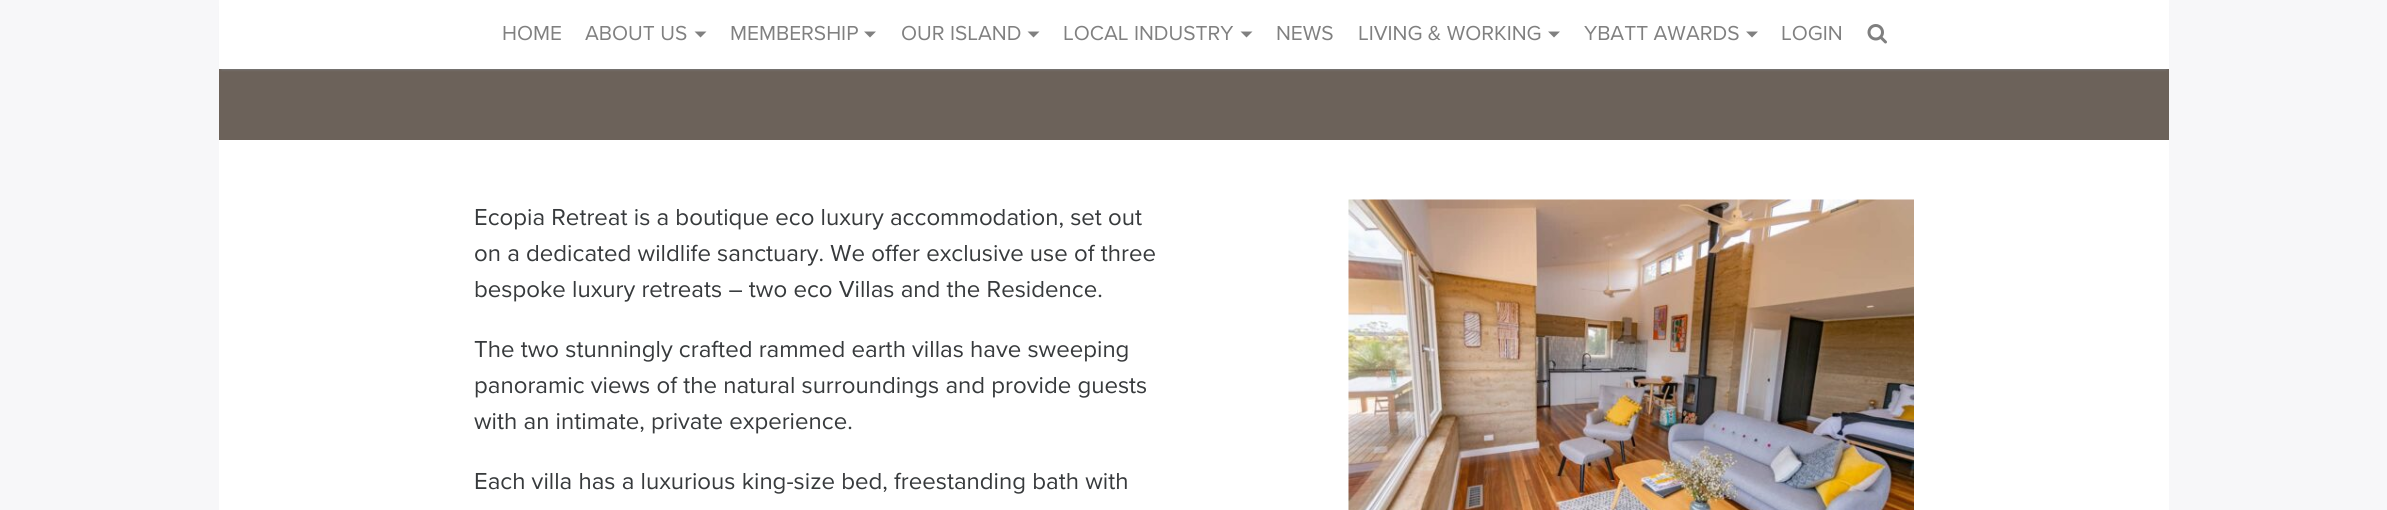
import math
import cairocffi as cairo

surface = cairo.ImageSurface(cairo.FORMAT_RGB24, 2387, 510)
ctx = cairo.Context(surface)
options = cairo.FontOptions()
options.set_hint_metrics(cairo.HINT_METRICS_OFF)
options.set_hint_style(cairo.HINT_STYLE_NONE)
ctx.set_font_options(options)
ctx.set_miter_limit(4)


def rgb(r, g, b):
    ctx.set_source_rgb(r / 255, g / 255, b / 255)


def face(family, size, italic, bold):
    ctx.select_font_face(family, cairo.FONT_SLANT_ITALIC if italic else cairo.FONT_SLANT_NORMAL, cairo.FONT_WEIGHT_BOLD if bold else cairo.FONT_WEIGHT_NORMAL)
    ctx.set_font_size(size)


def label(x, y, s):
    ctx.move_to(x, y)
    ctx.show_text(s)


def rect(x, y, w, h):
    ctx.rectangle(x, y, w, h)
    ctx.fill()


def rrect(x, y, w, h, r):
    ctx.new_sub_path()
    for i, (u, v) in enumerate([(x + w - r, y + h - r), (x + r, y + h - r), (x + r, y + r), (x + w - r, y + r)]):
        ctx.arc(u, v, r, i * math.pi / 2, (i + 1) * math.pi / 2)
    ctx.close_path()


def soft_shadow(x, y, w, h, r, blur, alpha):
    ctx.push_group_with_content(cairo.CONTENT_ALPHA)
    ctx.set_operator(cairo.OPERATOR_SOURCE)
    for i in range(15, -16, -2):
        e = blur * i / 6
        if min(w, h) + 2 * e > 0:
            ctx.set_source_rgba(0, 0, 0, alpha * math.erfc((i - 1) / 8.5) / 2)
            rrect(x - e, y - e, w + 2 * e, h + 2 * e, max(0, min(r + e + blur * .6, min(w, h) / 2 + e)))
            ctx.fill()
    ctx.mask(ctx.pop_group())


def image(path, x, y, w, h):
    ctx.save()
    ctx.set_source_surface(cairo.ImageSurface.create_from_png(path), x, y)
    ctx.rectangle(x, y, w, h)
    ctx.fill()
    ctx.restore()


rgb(247, 247, 249)
ctx.paint()
rgb(108, 98, 90)
rect(219, 69, 1950, 71)
rgb(129, 138, 145)
soft_shadow(222, 6, 1944, 63, 0, 1.5, 1)
rgb(255, 255, 255)
rect(219, 0, 1950, 69)
face('Proxima Nova', 21, 0, 0)
rgb(128, 128, 128)
label(502, 40, 'HOME')
label(585, 40, 'ABOUT US')
ctx.new_path()
ctx.move_to(694.5, 31.5)
ctx.line_to(706.5, 31.5)
ctx.line_to(700.5, 37.5)
ctx.close_path()
ctx.fill()
label(730, 40, 'MEMBERSHIP')
ctx.new_path()
ctx.move_to(864, 31.5)
ctx.line_to(876, 31.5)
ctx.line_to(870, 37.5)
ctx.close_path()
ctx.fill()
label(901, 40, 'OUR ISLAND')
ctx.new_path()
ctx.move_to(1027.5, 31.5)
ctx.line_to(1039.5, 31.5)
ctx.line_to(1033.5, 37.5)
ctx.close_path()
ctx.fill()
label(1063, 40, 'LOCAL INDUSTRY')
ctx.new_path()
ctx.move_to(1240.5, 31.5)
ctx.line_to(1252.5, 31.5)
ctx.line_to(1246.5, 37.5)
ctx.close_path()
ctx.fill()
label(1276, 40, 'NEWS')
label(1358, 40, 'LIVING & WORKING')
ctx.new_path()
ctx.move_to(1548, 31.5)
ctx.line_to(1560, 31.5)
ctx.line_to(1554, 37.5)
ctx.close_path()
ctx.fill()
label(1584, 40, 'YBATT AWARDS')
ctx.new_path()
ctx.move_to(1746, 31.5)
ctx.line_to(1758, 31.5)
ctx.line_to(1752, 37.5)
ctx.close_path()
ctx.fill()
label(1781, 40, 'LOGIN')
image('image0.png', 1867, 24, 20, 20)
rgb(255, 255, 255)
rect(219, 140, 1950, 370)
face('Proxima Nova', 24, 0, 0)
rgb(55, 58, 60)
label(474, 225, 'Ecopia Retreat is a boutique eco luxury accommodation, set out')
label(474, 261, 'on a dedicated wildlife sanctuary. We offer exclusive use of three')
label(474, 297, 'bespoke luxury retreats – two eco Villas and the Residence.')
label(474, 357, 'The two stunningly crafted rammed earth villas have sweeping')
label(474, 393, 'panoramic views of the natural surroundings and provide guests')
label(474, 429, 'with an intimate, private experience.')
label(474, 489, 'Each villa has a luxurious king-size bed, freestanding bath with')
image('image1.png', 1348, 199, 566, 311)
surface.write_to_png('render.png')
